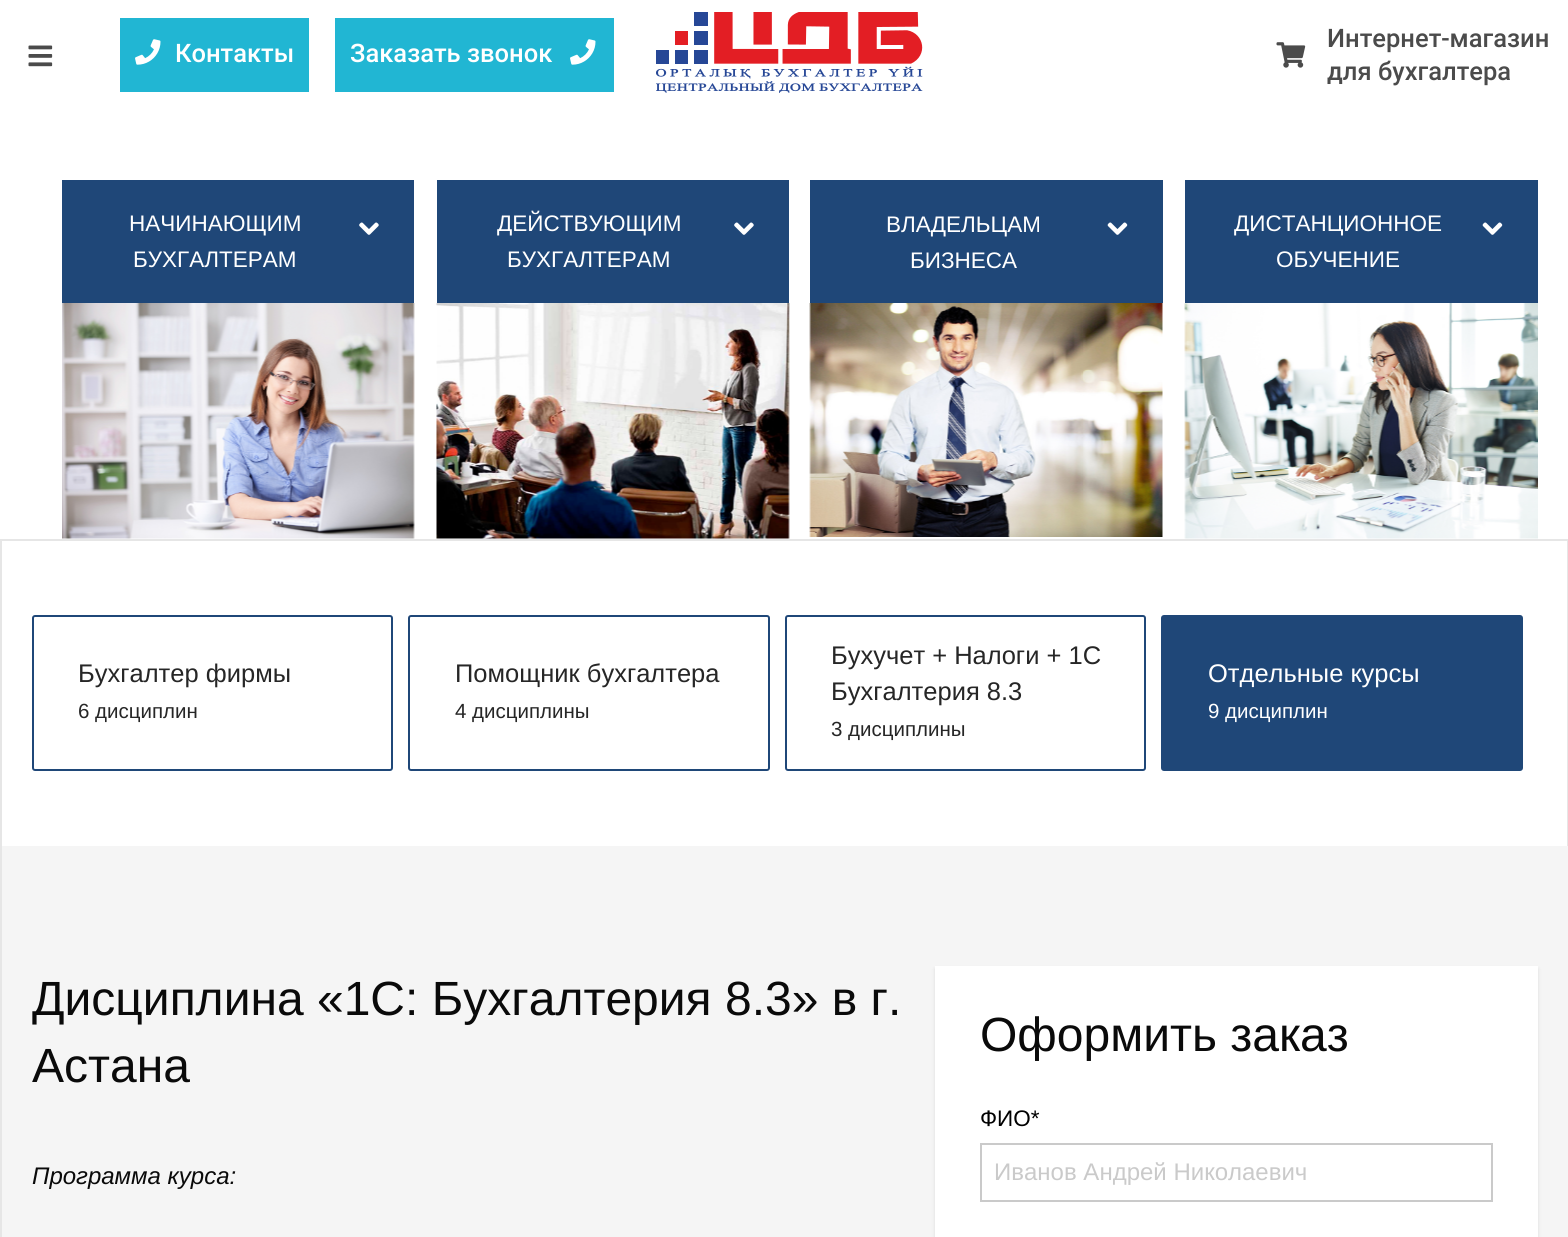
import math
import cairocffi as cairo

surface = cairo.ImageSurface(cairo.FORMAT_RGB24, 1568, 1237)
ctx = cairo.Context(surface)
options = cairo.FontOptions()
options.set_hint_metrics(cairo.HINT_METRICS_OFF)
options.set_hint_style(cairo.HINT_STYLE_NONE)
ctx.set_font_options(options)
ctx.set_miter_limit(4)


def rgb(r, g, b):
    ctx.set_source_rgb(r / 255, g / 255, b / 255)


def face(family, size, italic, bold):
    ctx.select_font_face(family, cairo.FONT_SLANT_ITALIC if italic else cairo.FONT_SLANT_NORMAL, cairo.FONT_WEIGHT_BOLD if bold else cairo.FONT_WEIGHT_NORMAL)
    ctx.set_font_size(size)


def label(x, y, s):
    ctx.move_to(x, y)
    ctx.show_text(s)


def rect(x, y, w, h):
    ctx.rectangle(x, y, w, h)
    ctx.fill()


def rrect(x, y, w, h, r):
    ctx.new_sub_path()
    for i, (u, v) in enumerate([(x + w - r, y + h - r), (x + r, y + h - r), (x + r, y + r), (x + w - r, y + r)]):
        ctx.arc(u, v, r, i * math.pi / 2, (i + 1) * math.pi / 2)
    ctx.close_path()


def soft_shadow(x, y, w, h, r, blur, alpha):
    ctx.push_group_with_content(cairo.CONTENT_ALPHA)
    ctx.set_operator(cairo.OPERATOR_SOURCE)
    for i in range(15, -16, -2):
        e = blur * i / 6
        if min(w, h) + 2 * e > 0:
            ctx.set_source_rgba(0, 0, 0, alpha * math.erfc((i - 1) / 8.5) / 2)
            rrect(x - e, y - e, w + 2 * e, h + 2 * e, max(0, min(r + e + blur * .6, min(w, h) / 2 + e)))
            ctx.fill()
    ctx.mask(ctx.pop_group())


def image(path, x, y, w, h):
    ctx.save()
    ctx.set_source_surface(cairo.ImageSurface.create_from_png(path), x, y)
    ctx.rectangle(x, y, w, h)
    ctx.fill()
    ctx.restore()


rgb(255, 255, 255)
ctx.paint()
image('image0.png', 28, 45, 25, 22)
rgb(33, 182, 211)
rect(120, 18, 189, 74)
image('image1.png', 135, 39, 26, 26)
face('Roboto Medium', 25.5, 0, 0)
rgb(255, 255, 255)
label(175, 62, 'Контакты')
rgb(33, 182, 211)
rect(335, 18, 279, 74)
rgb(255, 255, 255)
label(350, 62, 'Заказать звонок')
image('image1.png', 570, 39, 26, 26)
image('image2.png', 656, 12, 267, 81)
image('image3.png', 1276, 42, 30, 26)
rgb(75, 75, 75)
label(1327, 47, 'Интернет-магазин')
label(1327, 80, 'для бухгалтера')
rgb(31, 71, 120)
rect(62, 180, 352, 123)
face('Liberation Sans', 22.5, 0, 0)
rgb(255, 255, 255)
label(129, 231, 'НАЧИНАЮЩИМ')
image('image4.png', 359, 222, 20, 13)
label(133, 267, 'БУХГАЛТЕРАМ')
image('image5.png', 62, 303, 353, 236)
rgb(31, 71, 120)
rect(437, 180, 352, 123)
rgb(255, 255, 255)
label(497, 231, 'ДЕЙСТВУЮЩИМ')
image('image4.png', 734, 222, 20, 13)
label(507, 267, 'БУХГАЛТЕРАМ')
image('image6.png', 436, 303, 354, 236)
rgb(31, 71, 120)
rect(810, 180, 353, 123)
rgb(255, 255, 255)
label(886, 232, 'ВЛАДЕЛЬЦАМ')
image('image7.png', 1107, 222, 21, 13)
label(910, 268, 'БИЗНЕСА')
image('image8.png', 809, 303, 354, 234)
rgb(31, 71, 120)
rect(1185, 180, 353, 123)
rgb(255, 255, 255)
label(1234, 231, 'ДИСТАНЦИОННОЕ')
image('image7.png', 1482, 222, 21, 13)
label(1276, 267, 'ОБУЧЕНИЕ')
image('image9.png', 1184, 303, 354, 236)
ctx.rectangle(1, 540, 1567, 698)
rgb(230, 230, 230)
ctx.stroke()
rrect(33, 616, 359, 154, 2)
rgb(31, 71, 120)
ctx.stroke()
face('Liberation Sans', 25.5, 0, 0)
rgb(38, 38, 38)
label(78, 682, 'Бухгалтер фирмы')
face('Liberation Sans', 20.5, 0, 0)
label(78, 718, '6 дисциплин')
rrect(409, 616, 360, 154, 2)
rgb(31, 71, 120)
ctx.stroke()
face('Liberation Sans', 25.5, 0, 0)
rgb(38, 38, 38)
label(455, 682, 'Помощник бухгалтера')
face('Liberation Sans', 20.5, 0, 0)
label(455, 718, '4 дисциплины')
rrect(786, 616, 359, 154, 2)
rgb(31, 71, 120)
ctx.stroke()
face('Liberation Sans', 25.5, 0, 0)
rgb(38, 38, 38)
label(831, 664, 'Бухучет + Налоги + 1С')
label(831, 700, 'Бухгалтерия 8.3')
face('Liberation Sans', 20.5, 0, 0)
label(831, 736, '3 дисциплины')
rgb(31, 71, 120)
rrect(1162, 616, 360, 154, 2)
ctx.fill_preserve()
ctx.stroke()
face('Liberation Sans', 25.5, 0, 0)
rgb(255, 255, 255)
label(1208, 682, 'Отдельные курсы')
face('Liberation Sans', 20.5, 0, 0)
label(1208, 718, '9 дисциплин')
rgb(245, 245, 245)
rect(2, 846, 1566, 391)
face('Liberation Sans', 48, 0, 0)
rgb(10, 10, 10)
label(32, 1015, 'Дисциплина «1С: Бухгалтерия 8.3» в г.')
label(32, 1082, 'Астана')
face('Liberation Sans', 24, 1, 0)
label(32, 1184, 'Программа курса:')
rgb(0, 0, 0)
soft_shadow(935, 969, 603, 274, 0, 2, 0.1)
rgb(255, 255, 255)
rect(935, 966, 603, 271)
face('Liberation Sans', 48, 0, 0)
rgb(10, 10, 10)
label(980, 1051, 'Оформить заказ')
face('Liberation Sans', 22.5, 0, 0)
rgb(0, 0, 0)
label(980, 1126, 'ФИО*')
ctx.rectangle(981, 1144, 511, 57)
rgb(202, 202, 202)
ctx.stroke()
face('Liberation Sans', 24, 0, 0)
label(994, 1180, 'Иванов Андрей Николаевич')
surface.write_to_png('render.png')
